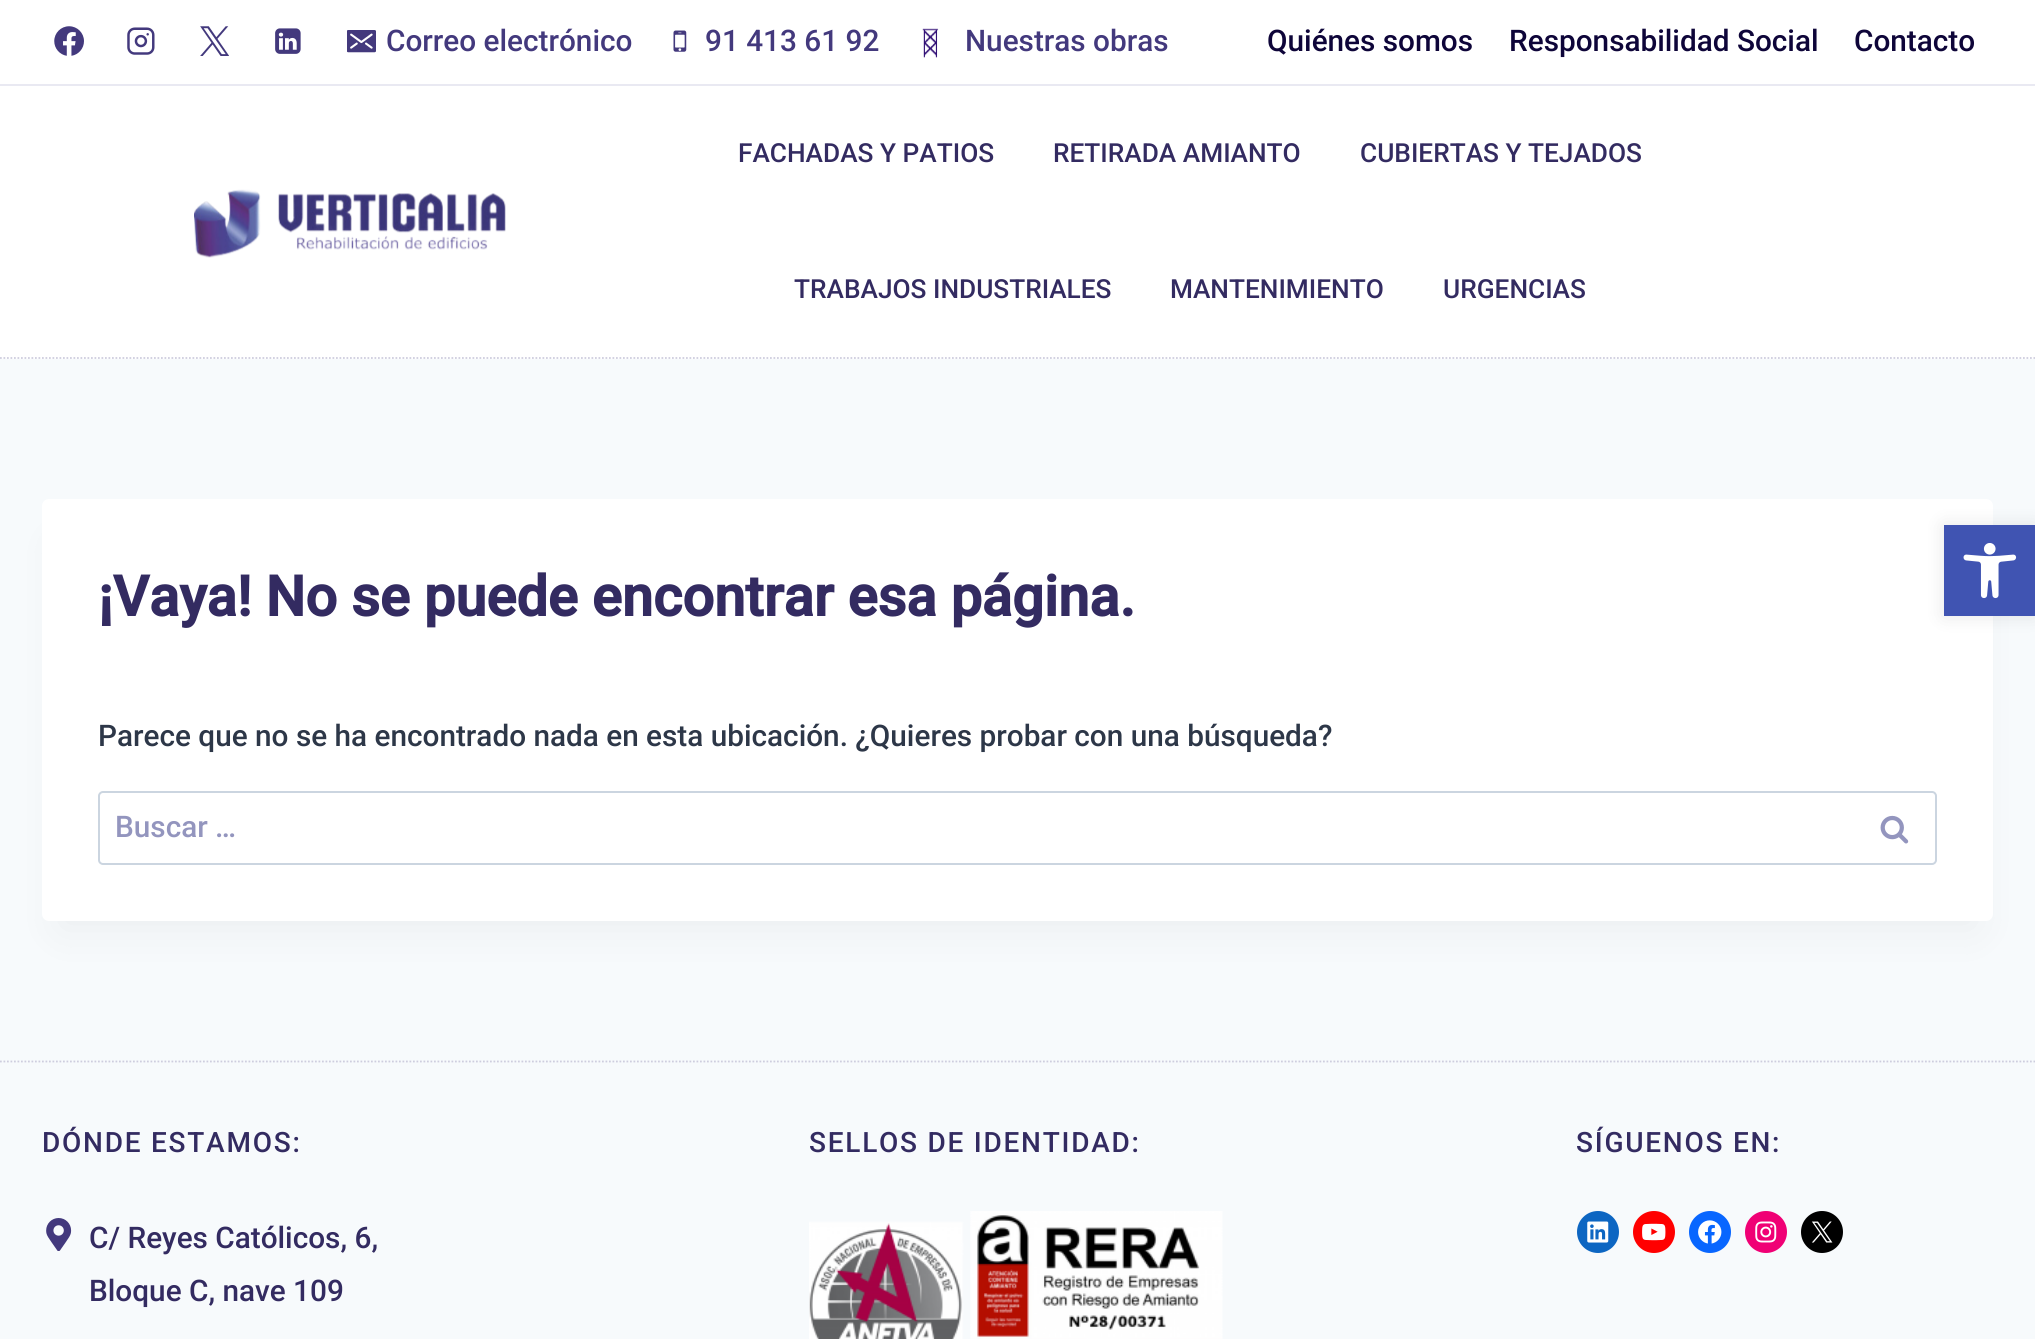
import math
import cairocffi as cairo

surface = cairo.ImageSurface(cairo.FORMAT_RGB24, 2035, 1339)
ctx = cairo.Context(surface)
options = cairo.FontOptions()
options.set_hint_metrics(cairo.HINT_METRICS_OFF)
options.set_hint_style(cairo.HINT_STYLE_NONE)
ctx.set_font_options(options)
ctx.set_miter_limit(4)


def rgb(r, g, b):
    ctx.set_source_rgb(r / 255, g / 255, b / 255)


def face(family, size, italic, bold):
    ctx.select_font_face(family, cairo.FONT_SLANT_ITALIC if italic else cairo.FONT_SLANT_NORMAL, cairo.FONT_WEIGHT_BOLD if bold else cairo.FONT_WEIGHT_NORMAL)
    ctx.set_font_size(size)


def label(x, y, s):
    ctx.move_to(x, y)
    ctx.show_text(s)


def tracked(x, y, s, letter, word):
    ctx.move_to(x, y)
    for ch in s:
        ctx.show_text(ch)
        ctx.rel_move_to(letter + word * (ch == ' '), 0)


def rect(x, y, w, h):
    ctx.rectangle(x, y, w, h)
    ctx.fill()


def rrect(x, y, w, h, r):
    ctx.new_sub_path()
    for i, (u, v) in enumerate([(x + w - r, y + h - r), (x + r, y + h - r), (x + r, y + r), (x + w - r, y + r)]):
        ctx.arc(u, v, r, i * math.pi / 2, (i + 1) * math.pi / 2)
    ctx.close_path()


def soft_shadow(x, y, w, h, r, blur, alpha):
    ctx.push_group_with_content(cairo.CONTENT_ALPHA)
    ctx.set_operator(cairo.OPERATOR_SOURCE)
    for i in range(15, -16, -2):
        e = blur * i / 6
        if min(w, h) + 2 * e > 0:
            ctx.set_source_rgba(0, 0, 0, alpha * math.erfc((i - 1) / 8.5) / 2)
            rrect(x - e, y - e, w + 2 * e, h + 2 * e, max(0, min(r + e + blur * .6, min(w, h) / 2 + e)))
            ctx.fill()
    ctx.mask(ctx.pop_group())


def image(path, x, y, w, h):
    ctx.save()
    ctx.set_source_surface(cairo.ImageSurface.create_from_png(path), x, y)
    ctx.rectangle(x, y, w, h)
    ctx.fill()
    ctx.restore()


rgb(247, 250, 252)
ctx.paint()
rgb(255, 255, 255)
rect(0, 0, 2035, 359)
rgb(233, 233, 242)
rect(0, 84, 2035, 2)
image('image0.png', 54, 26, 30, 30)
image('image1.png', 127, 27, 28, 28)
image('image2.png', 200, 26, 29, 30)
image('image3.png', 275, 28, 26, 26)
image('image4.png', 347, 30, 29, 23)
face('Roboto Medium', 29.75, 0, 0)
rgb(67, 57, 125)
label(386, 51, 'Correo electrónico')
image('image5.png', 673, 30, 14, 22)
label(705, 51, '91 413 61 92')
image('image6.png', 922, 28, 17, 30)
label(965, 51, 'Nuestras obras')
rgb(14, 5, 57)
label(1267, 51, 'Quiénes somos')
label(1509, 51, 'Responsabilidad Social')
label(1854, 51, 'Contacto')
ctx.new_path()
ctx.move_to(0, 358)
ctx.line_to(2035, 358)
rgb(206, 205, 222)
ctx.set_line_width(1.8)
ctx.set_dash([1.75, 1.75])
ctx.stroke()
image('image7.png', 194, 189, 312, 69)
face('Roboto Medium', 26.25, 0, 0)
rgb(51, 43, 97)
label(738, 162, 'FACHADAS Y PATIOS')
label(1053, 162, 'RETIRADA AMIANTO')
label(1360, 162, 'CUBIERTAS Y TEJADOS')
label(794, 298, 'TRABAJOS INDUSTRIALES')
label(1170, 298, 'MANTENIMIENTO')
label(1443, 298, 'URGENCIAS')
rgb(0, 0, 0)
soft_shadow(60, 543, 1916, 386, 0, 22, 0.05)
rgb(255, 255, 255)
rrect(42, 499, 1951, 422, 7)
ctx.fill()
face('Roboto', 56, 0, 1)
rgb(51, 43, 97)
label(98, 616, '¡Vaya! No se puede encontrar esa página.')
face('Roboto Medium', 29.75, 0, 0)
rgb(45, 55, 72)
label(98, 746, 'Parece que no se ha encontrado nada en esta ubicación. ¿Quieres probar con una búsqueda?')
rrect(99, 792, 1837, 72, 4)
rgb(203, 213, 224)
ctx.set_line_width(2)
ctx.set_dash([])
ctx.stroke()
rgb(147, 149, 190)
label(115, 837, 'Buscar …')
image('image8.png', 1880, 815, 29, 29)
ctx.new_path()
ctx.move_to(0, 1061.5)
ctx.line_to(2035, 1061.5)
rgb(206, 205, 222)
ctx.set_line_width(1.8)
ctx.set_dash([1.75, 1.75])
ctx.stroke()
face('Roboto Medium', 28, 0, 0)
rgb(51, 43, 97)
tracked(42, 1152, 'DÓNDE ESTAMOS:', 1.75, 0)
image('image9.png', 46, 1218, 26, 33)
face('Roboto Medium', 29.75, 0, 0)
label(89, 1248, 'C/ Reyes Católicos, 6,')
label(89, 1301, 'Bloque C, nave 109')
face('Roboto Medium', 28, 0, 0)
tracked(809, 1152, 'SELLOS DE IDENTIDAD:', 1.75, 0)
image('image10.png', 809, 1211, 414, 128)
tracked(1576, 1152, 'SÍGUENOS EN:', 1.75, 0)
rgb(13, 102, 194)
ctx.new_path()
ctx.arc(1598, 1232, 21, 0, 2 * math.pi)
ctx.fill()
image('image11.png', 1587, 1221, 22, 22)
rgb(255, 0, 0)
ctx.arc(1654, 1232, 21, 0, 2 * math.pi)
ctx.fill()
image('image12.png', 1642, 1223, 24, 18)
rgb(8, 102, 255)
ctx.arc(1710, 1232, 21, 0, 2 * math.pi)
ctx.fill()
image('image13.png', 1698, 1220, 24, 24)
rgb(240, 0, 117)
ctx.arc(1766, 1232, 21, 0, 2 * math.pi)
ctx.fill()
image('image14.png', 1755, 1221, 22, 22)
rgb(0, 0, 0)
ctx.arc(1822, 1232, 21, 0, 2 * math.pi)
ctx.fill()
image('image15.png', 1811, 1221, 22, 22)
rgb(0, 0, 0)
soft_shadow(1944, 525, 91, 91, 0, 9, 0.1)
rgb(64, 84, 178)
rect(1944, 525, 91, 91)
image('image16.png', 1963, 543, 54, 56)
surface.write_to_png('render.png')
